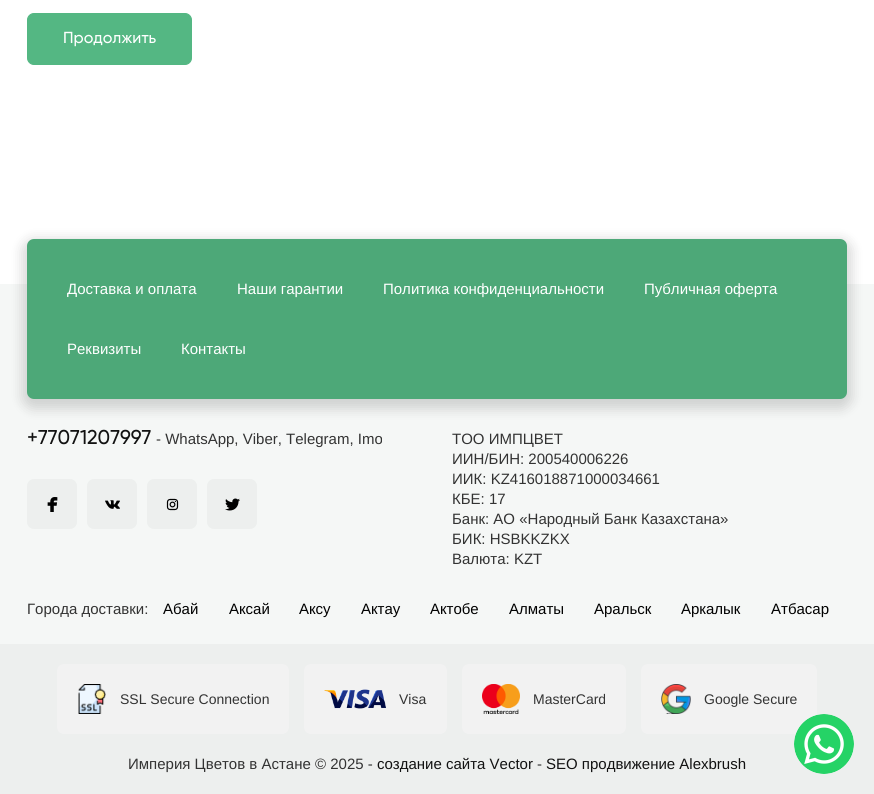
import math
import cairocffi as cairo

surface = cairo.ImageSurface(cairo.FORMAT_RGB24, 874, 794)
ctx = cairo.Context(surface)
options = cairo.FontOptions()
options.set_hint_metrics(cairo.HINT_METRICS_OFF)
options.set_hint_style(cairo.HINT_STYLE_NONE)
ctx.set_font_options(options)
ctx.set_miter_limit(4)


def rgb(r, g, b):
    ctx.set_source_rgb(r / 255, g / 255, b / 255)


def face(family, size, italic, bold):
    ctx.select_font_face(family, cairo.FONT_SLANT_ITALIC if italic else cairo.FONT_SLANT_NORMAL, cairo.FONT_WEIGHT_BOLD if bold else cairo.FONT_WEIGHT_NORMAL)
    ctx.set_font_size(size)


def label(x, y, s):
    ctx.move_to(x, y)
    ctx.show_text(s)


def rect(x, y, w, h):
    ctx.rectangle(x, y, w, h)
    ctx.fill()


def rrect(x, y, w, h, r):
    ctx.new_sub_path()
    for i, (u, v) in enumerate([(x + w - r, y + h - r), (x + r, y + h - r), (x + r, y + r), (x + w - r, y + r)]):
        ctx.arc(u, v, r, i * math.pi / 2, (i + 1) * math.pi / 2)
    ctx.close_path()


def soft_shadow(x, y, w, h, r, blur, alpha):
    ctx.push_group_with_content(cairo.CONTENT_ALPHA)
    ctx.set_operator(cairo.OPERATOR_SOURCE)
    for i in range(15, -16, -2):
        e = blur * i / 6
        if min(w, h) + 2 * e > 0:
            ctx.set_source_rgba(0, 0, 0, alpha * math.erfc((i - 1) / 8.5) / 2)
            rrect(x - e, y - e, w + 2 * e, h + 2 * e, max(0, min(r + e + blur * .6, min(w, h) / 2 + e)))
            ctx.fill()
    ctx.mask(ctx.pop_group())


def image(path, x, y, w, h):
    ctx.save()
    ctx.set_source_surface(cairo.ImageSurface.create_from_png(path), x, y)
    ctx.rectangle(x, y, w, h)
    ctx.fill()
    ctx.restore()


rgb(255, 255, 255)
ctx.paint()
rgb(84, 183, 131)
rrect(27.5, 13.5, 164, 51, 6.5)
ctx.fill_preserve()
ctx.set_line_width(1)
ctx.stroke()
face('Gilroy Medium', 16, 0, 0)
rgb(255, 255, 255)
label(63, 43, 'Продолжить')
rgb(245, 247, 246)
rect(0, 284, 874, 360)
rgb(0, 0, 0)
soft_shadow(22, 239, 830, 170, 12, 6, 0.15)
rgb(77, 168, 120)
rrect(27, 239, 820, 160, 7)
ctx.fill()
face('Liberation Sans', 15, 0, 0)
rgb(255, 255, 255)
label(67, 294, 'Доставка и оплата')
label(237, 294, 'Наши гарантии')
label(383, 294, 'Политика конфиденциальности')
label(644, 294, 'Публичная оферта')
label(67, 354, 'Реквизиты')
label(181, 354, 'Контакты')
face('Gilroy Medium', 20, 0, 0)
rgb(18, 18, 18)
label(27, 444, '+77071207997')
face('Liberation Sans', 15, 0, 0)
rgb(51, 51, 51)
label(156, 444, '- WhatsApp, Viber, Telegram, Imo')
rgb(237, 239, 238)
rrect(27, 479, 50, 50, 7)
ctx.fill()
image('image0.png', 47, 497, 11, 15)
rrect(87, 479, 50, 50, 7)
ctx.fill()
image('image1.png', 105, 500, 15, 9)
rrect(147, 479, 50, 50, 7)
ctx.fill()
image('image2.png', 166, 498, 13, 13)
rrect(207, 479, 50, 50, 7)
ctx.fill()
image('image3.png', 225, 498, 15, 13)
rgb(51, 51, 51)
label(452, 444, 'ТОО ИМПЦВЕТ')
label(452, 464, 'ИИН/БИН: 200540006226')
label(452, 484, 'ИИК: KZ416018871000034661')
label(452, 504, 'КБЕ: 17')
label(452, 524, 'Банк: АО «Народный Банк Казахстана»')
label(452, 544, 'БИК: HSBKKZKX')
label(452, 564, 'Валюта: KZT')
label(27, 614, 'Города доставки:')
rgb(0, 0, 0)
label(163, 614, 'Абай')
label(229, 614, 'Аксай')
label(299, 614, 'Аксу')
label(361, 614, 'Актау')
label(430, 614, 'Актобе')
label(509, 614, 'Алматы')
label(594, 614, 'Аральск')
label(681, 614, 'Аркалык')
label(771, 614, 'Атбасар')
rgb(237, 239, 238)
rect(0, 644, 874, 150)
rgb(242, 242, 242)
rrect(57, 664, 232, 70, 7)
ctx.fill()
image('image4.png', 78, 684, 28, 30)
face('Liberation Sans', 14, 0, 0)
rgb(51, 51, 51)
label(120, 704, 'SSL Secure Connection')
rgb(242, 242, 242)
rrect(304, 664, 143, 70, 7)
ctx.fill()
image('image5.png', 324, 689, 62, 20)
rgb(51, 51, 51)
label(399, 704, 'Visa')
rgb(242, 242, 242)
rrect(462, 664, 164, 70, 7)
ctx.fill()
image('image6.png', 482, 684, 38, 30)
rgb(51, 51, 51)
label(533, 704, 'MasterCard')
rgb(242, 242, 242)
rrect(641, 664, 176, 70, 7)
ctx.fill()
image('image7.png', 661, 684, 30, 30)
rgb(51, 51, 51)
label(704, 704, 'Google Secure')
face('Liberation Sans', 15, 0, 0)
label(128, 769, 'Империя Цветов в Астане © 2025 -')
rgb(18, 18, 18)
label(377, 769, 'создание сайта Vector')
rgb(51, 51, 51)
label(537, 769, '-')
rgb(18, 18, 18)
label(546, 769, 'SEO продвижение Alexbrush')
image('image8.png', 794, 714, 60, 60)
surface.write_to_png('render.png')
